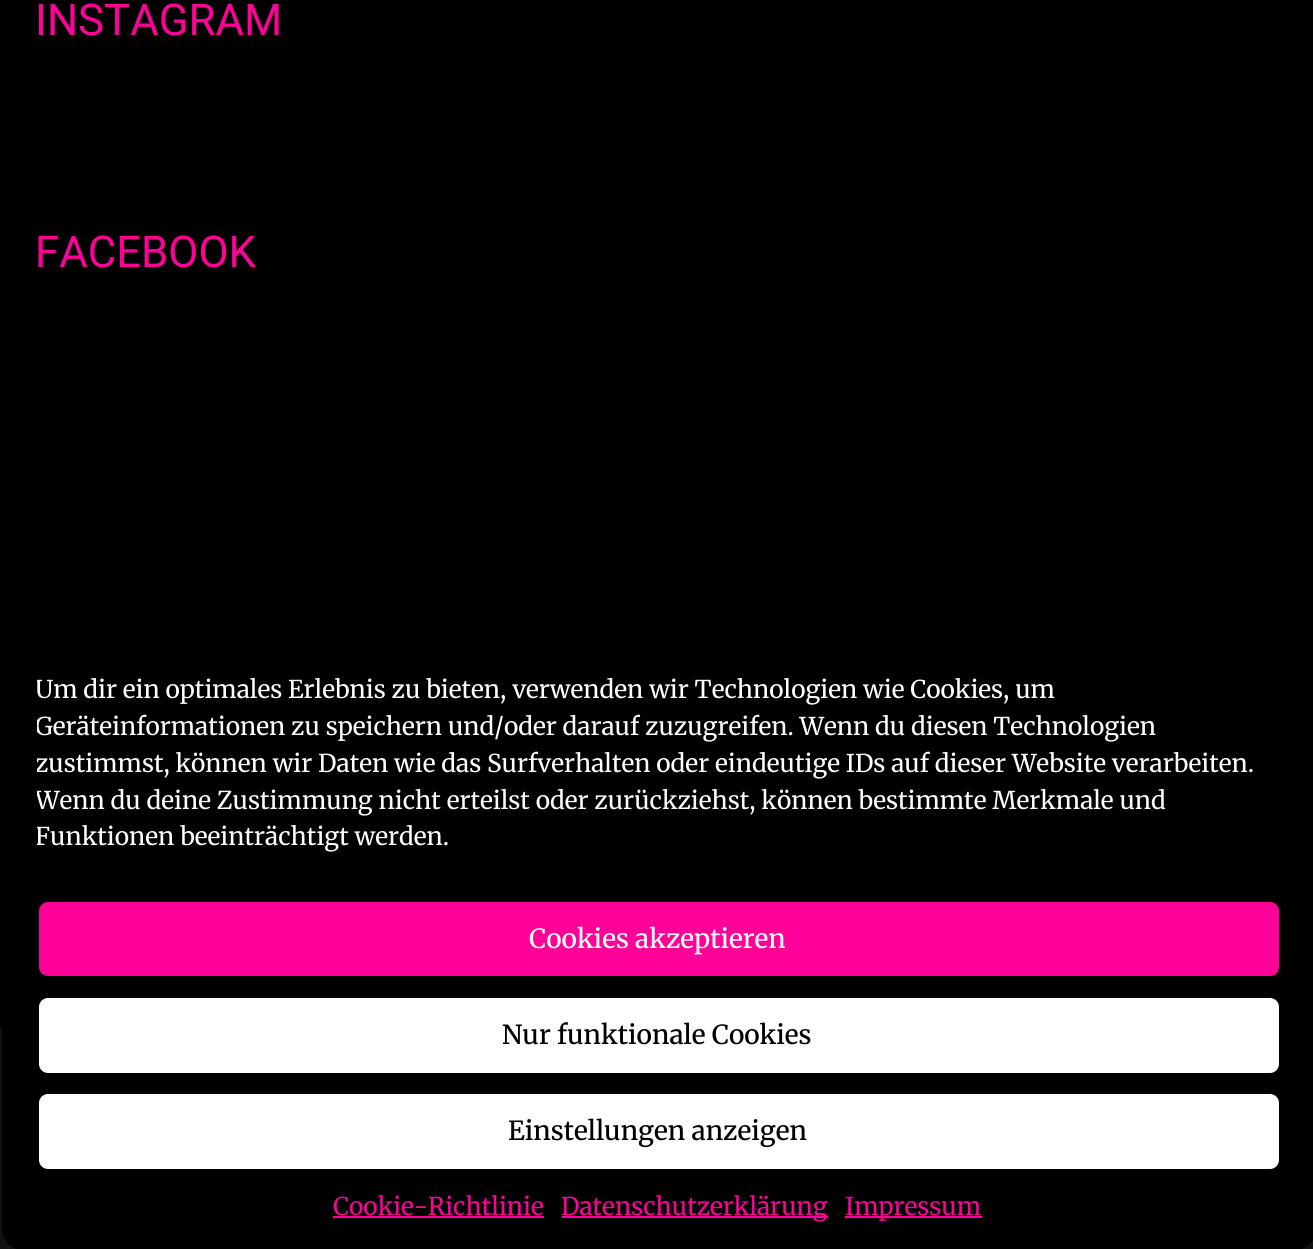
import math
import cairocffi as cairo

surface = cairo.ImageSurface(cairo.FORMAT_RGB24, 1313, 1249)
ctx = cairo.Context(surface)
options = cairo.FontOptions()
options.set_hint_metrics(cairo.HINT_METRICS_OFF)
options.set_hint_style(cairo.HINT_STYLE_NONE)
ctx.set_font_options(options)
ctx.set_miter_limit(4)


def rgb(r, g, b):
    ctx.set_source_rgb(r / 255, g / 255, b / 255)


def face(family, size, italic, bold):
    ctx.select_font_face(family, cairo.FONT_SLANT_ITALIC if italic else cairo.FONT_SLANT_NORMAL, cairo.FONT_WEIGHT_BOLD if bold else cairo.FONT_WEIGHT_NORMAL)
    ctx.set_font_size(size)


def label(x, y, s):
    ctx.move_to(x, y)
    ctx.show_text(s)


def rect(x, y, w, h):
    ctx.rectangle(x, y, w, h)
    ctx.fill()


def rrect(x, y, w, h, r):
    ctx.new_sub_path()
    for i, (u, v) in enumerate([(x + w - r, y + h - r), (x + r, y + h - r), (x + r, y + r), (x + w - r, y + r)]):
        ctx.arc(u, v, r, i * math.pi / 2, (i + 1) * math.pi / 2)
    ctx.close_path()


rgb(0, 0, 0)
ctx.paint()
face('Roboto', 43.75, 0, 0)
rgb(255, 0, 153)
label(35, 35, 'INSTAGRAM')
label(35, 267, 'FACEBOOK')
rgb(17, 17, 17)
rect(0, 1027, 1313, 222)
rgb(0, 0, 0)
rrect(2, 611, 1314, 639, 21)
ctx.fill()
ctx.save()
ctx.rectangle(37, 672, 1244, 193)
ctx.clip()
face('Merriweather', 24.5, 0, 0)
rgb(255, 255, 255)
label(35, 698, 'Um dir ein optimales Erlebnis zu bieten, verwenden wir Technologien wie Cookies, um')
label(35, 735, 'Geräteinformationen zu speichern und/oder darauf zuzugreifen. Wenn du diesen Technologien')
label(35, 772, 'zustimmst, können wir Daten wie das Surfverhalten oder eindeutige IDs auf dieser Website verarbeiten.')
label(35, 809, 'Wenn du deine Zustimmung nicht erteilst oder zurückziehst, können bestimmte Merkmale und')
label(35, 845, 'Funktionen beeinträchtigt werden.')
ctx.restore()
rgb(255, 0, 153)
rrect(38, 901, 1242, 76, 10)
ctx.fill_preserve()
rgb(0, 0, 0)
ctx.stroke()
face('Merriweather Medium', 26.25, 0, 0)
rgb(255, 255, 255)
label(529, 948, 'Cookies akzeptieren')
rrect(38, 997, 1242, 77, 10)
ctx.fill_preserve()
rgb(0, 0, 0)
ctx.stroke()
label(502, 1044, 'Nur funktionale Cookies')
rgb(255, 255, 255)
rrect(38, 1093, 1242, 77, 10)
ctx.fill_preserve()
rgb(0, 0, 0)
ctx.stroke()
label(508, 1140, 'Einstellungen anzeigen')
face('Merriweather', 24.5, 0, 0)
rgb(255, 0, 153)
label(333, 1215, 'Cookie-Richtlinie')
rect(333, 1216, 211, 2)
rect(562, 1216, 266, 2)
label(561, 1215, 'Datenschutzerklärung')
rect(845, 1216, 137, 2)
label(845, 1215, 'Impressum')
surface.write_to_png('render.png')
